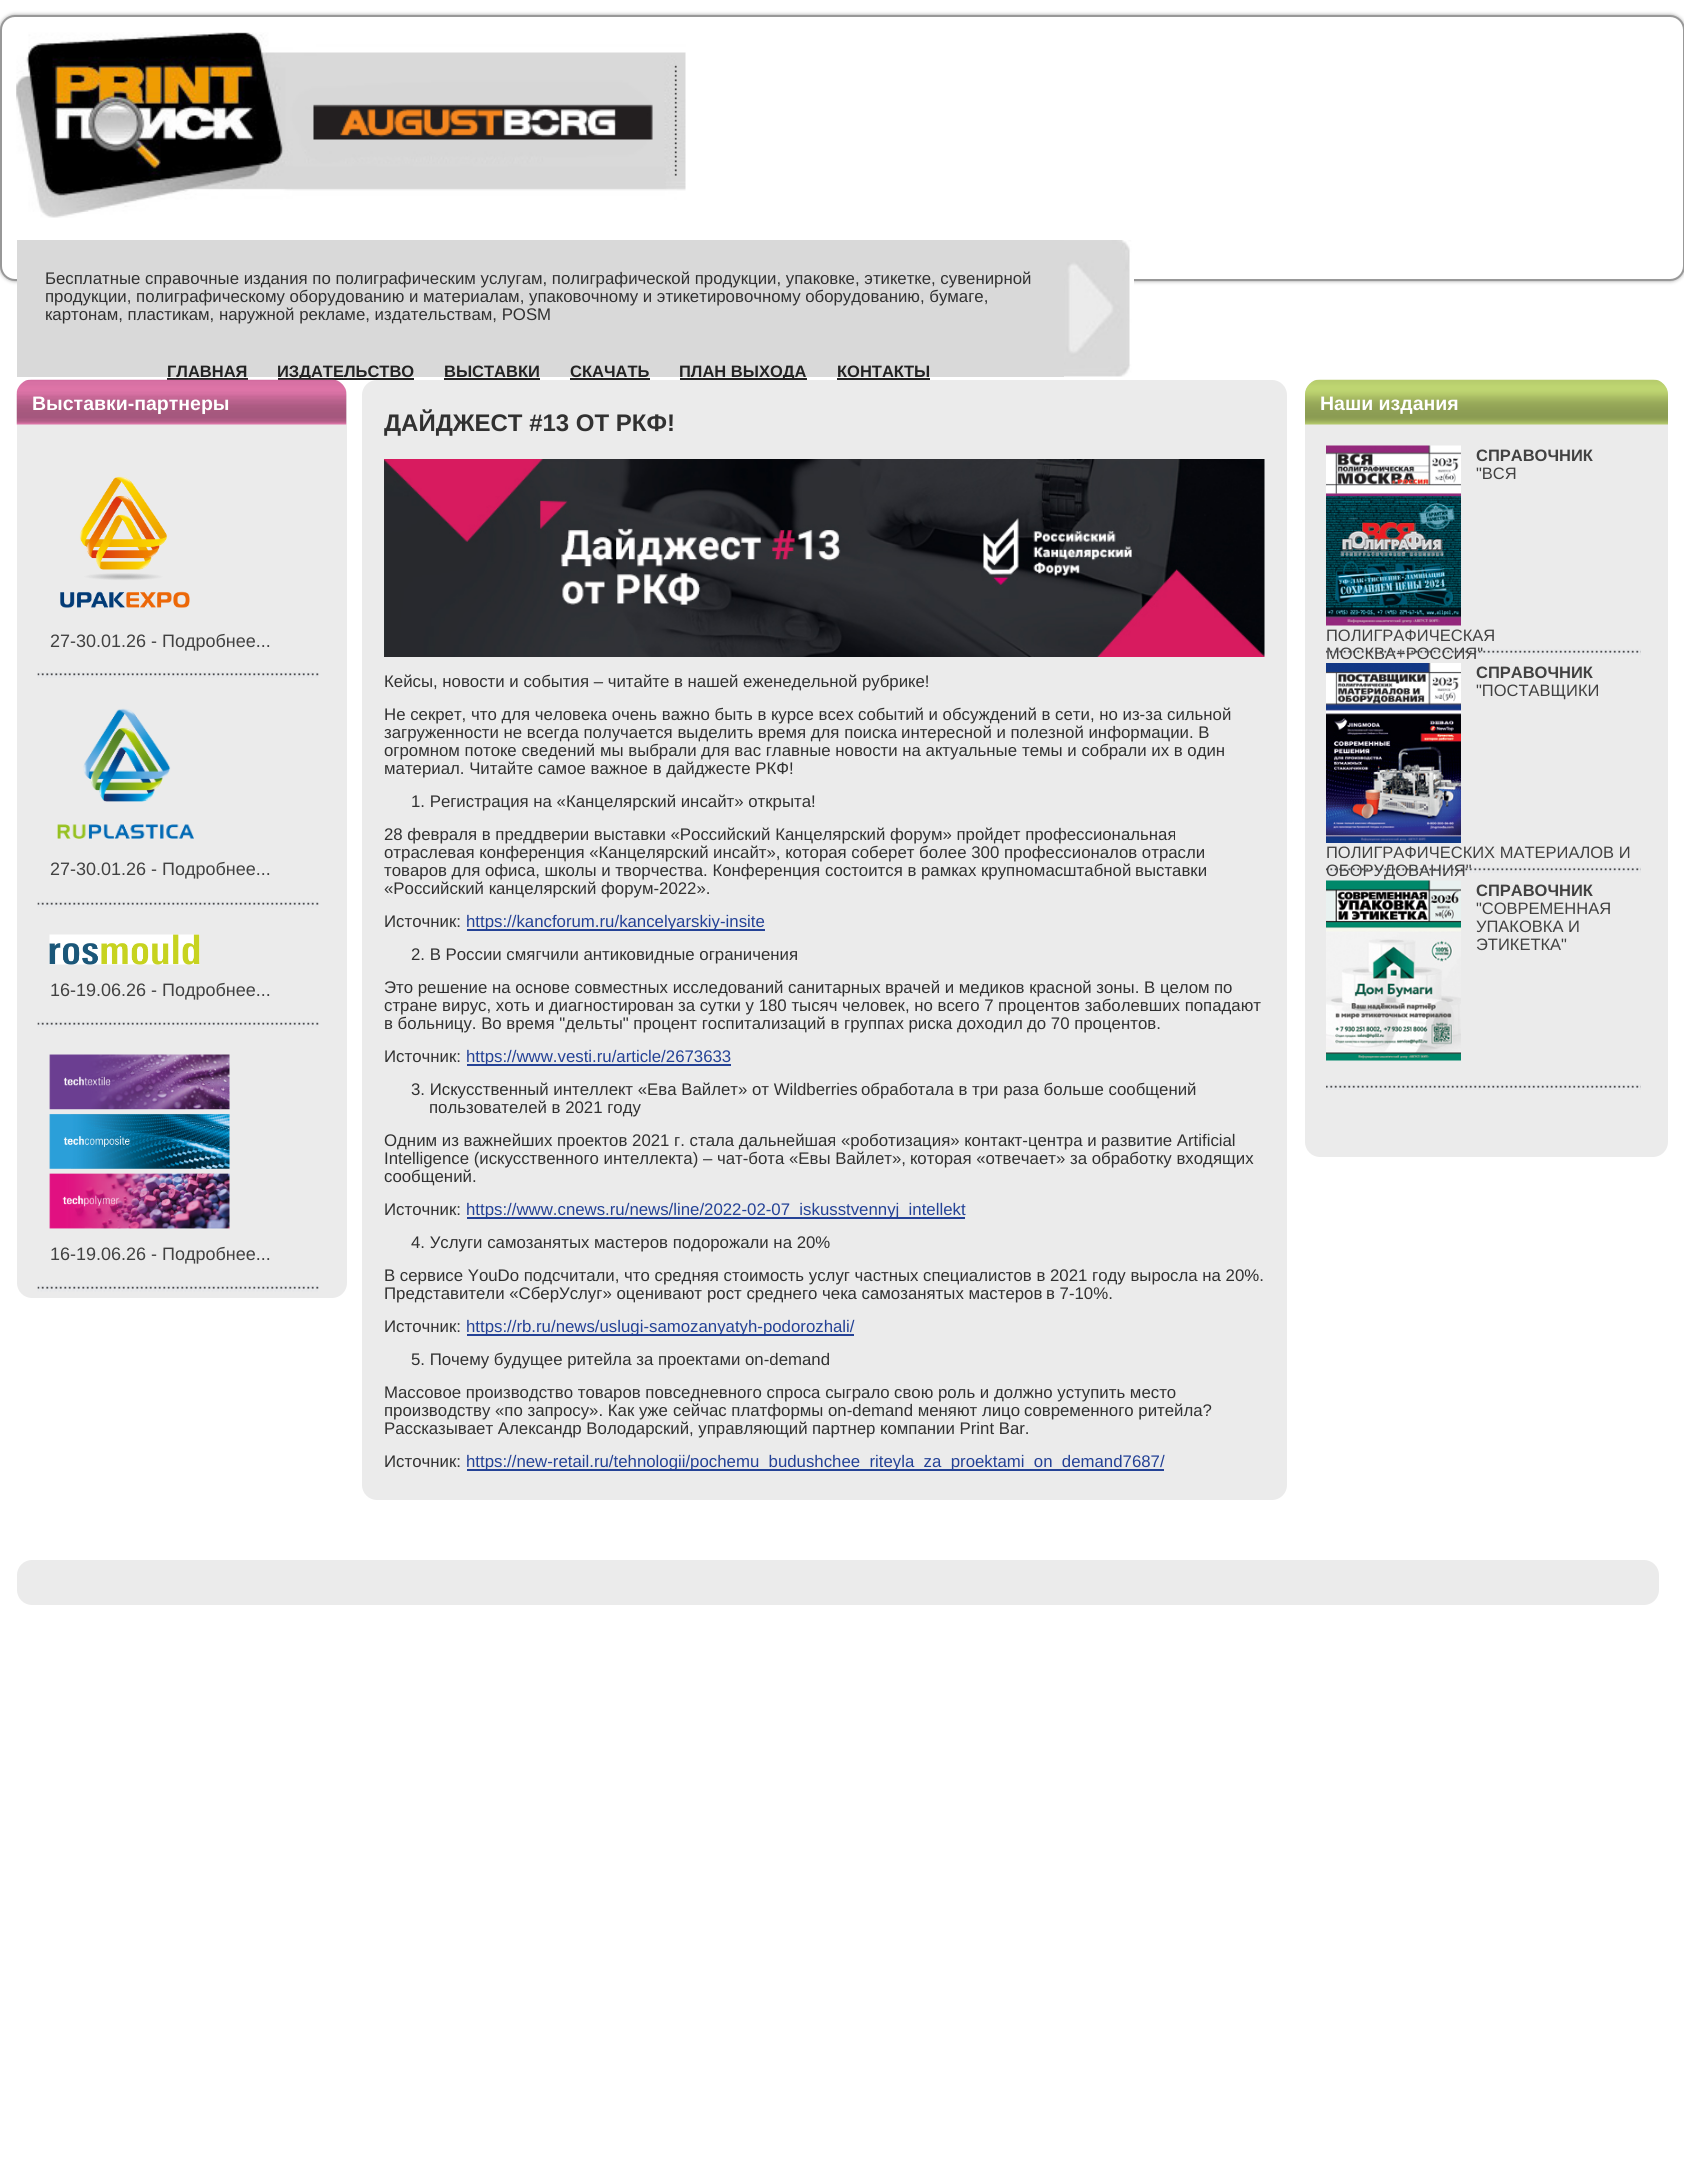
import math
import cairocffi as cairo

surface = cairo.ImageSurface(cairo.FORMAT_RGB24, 1684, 2162)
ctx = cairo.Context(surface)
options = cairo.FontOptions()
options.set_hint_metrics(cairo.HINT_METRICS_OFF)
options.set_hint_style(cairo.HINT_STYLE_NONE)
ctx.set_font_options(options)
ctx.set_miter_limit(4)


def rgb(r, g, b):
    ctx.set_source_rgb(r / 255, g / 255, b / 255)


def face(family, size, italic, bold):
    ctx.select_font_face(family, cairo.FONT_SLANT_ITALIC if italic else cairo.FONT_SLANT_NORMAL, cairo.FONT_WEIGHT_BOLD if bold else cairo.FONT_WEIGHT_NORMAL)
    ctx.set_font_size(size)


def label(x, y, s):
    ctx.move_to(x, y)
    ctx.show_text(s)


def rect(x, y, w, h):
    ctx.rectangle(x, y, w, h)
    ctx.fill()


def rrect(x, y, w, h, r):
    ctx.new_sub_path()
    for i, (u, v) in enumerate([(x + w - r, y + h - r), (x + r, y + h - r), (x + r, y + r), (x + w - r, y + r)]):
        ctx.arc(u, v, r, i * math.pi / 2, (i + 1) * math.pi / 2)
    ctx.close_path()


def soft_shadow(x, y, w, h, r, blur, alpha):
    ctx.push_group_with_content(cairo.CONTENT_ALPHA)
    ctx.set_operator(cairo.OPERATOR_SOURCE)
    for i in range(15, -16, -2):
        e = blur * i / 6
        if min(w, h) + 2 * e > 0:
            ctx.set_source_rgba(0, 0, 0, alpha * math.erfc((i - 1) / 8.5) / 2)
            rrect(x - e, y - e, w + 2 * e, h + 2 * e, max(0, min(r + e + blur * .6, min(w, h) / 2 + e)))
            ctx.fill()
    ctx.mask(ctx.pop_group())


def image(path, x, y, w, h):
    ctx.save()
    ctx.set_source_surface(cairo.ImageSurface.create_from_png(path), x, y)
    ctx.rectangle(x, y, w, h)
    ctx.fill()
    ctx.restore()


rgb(255, 255, 255)
ctx.paint()
rgb(153, 153, 153)
soft_shadow(0, 15, 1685, 266, 15, 2, 1)
rgb(255, 255, 255)
rrect(1, 16, 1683, 264, 14)
ctx.fill_preserve()
rgb(152, 152, 152)
ctx.stroke()
image('image0.png', 16, 32, 670, 186)
image('image1.png', 16, 83, 72, 129)
rgb(217, 217, 217)
rect(17, 240, 1047, 137)
face('Liberation Sans', 16.8, 0, 0)
rgb(49, 49, 49)
label(45, 284, 'Бесплатные справочные издания по полиграфическим услугам, полиграфической продукции, упаковке, этикетке, сувенирной')
label(45, 302, 'продукции, полиграфическому оборудованию и материалам, упаковочному и этикетировочному оборудованию, бумаге,')
label(45, 320, 'картонам, пластикам, наружной рекламе, издательствам, POSM')
image('image2.png', 1064, 240, 70, 137)
face('Liberation Sans', 16.5, 0, 1)
rgb(35, 35, 35)
label(167, 377, 'ГЛАВНАЯ')
rect(167, 378, 81, 2)
rect(278, 378, 136, 2)
label(277, 377, 'ИЗДАТЕЛЬСТВО')
label(444, 377, 'ВЫСТАВКИ')
rect(444, 378, 96, 2)
label(570, 377, 'СКАЧАТЬ')
rect(570, 378, 80, 2)
rect(680, 378, 127, 2)
label(679, 377, 'ПЛАН ВЫХОДА')
label(837, 377, 'КОНТАКТЫ')
rect(837, 378, 93, 2)
rgb(235, 235, 235)
rrect(17, 380, 330, 918, 15)
ctx.fill()
image('image3.png', 16, 379, 331, 46)
face('Liberation Sans', 19.5, 0, 1)
rgb(255, 255, 255)
label(32, 410, 'Выставки-партнеры')
image('image4.png', 37, 672, 282, 6)
image('image5.png', 60, 476, 130, 132)
face('Liberation Sans', 18, 0, 0)
rgb(65, 65, 65)
label(50, 647, '27-30.01.26 - Подробнее...')
image('image6.png', 37, 901, 282, 7)
image('image7.png', 57, 708, 137, 131)
label(50, 875, '27-30.01.26 - Подробнее...')
image('image6.png', 37, 1021, 282, 7)
image('image8.png', 49, 934, 151, 31)
label(50, 996, '16-19.06.26 - Подробнее...')
image('image9.png', 37, 1285, 282, 7)
image('image10.png', 49, 1054, 181, 175)
label(50, 1260, '16-19.06.26 - Подробнее...')
rgb(235, 235, 235)
rrect(362, 380, 925, 1120, 15)
ctx.fill()
face('Liberation Sans', 24, 0, 1)
rgb(49, 49, 49)
label(384, 431, 'ДАЙДЖЕСТ #13 ОТ РКФ!')
image('image11.png', 384, 459, 881, 198)
face('Liberation Sans', 16.8, 0, 0)
label(384, 687, 'Кейсы, новости и события – читайте в нашей еженедельной рубрике!')
label(384, 720, 'Не секрет, что для человека очень важно быть в курсе всех')
label(858, 720, 'событий и обсуждений в сети, но из-за')
label(1167, 720, 'сильной')
label(384, 738, 'загруженности не всегда получается выделить время для поиска')
label(901, 738, 'интересной и полезной информации. В')
label(384, 756, 'огромном потоке сведений мы выбрали')
label(701, 756, 'для вас главные новости на актуальные')
label(1022, 756, 'темы и собрали их в один')
label(384, 774, 'материал. Читайте самое важное в дайджесте РКФ!')
label(411, 807, '1. Регистрация на «Канцелярский инсайт» открыта!')
label(384, 840, '28 февраля в преддверии выставки «Российский Канцелярский')
label(890, 840, 'форум» пройдет профессиональная')
label(384, 858, 'отраслевая конференция «Канцелярский')
label(713, 858, 'инсайт», которая соберет более 300')
label(1004, 858, 'профессионалов отрасли')
label(384, 876, 'товаров для офиса, школы и творчества. Конференция')
label(825, 876, 'состоится в рамках крупномасштабной')
label(1135, 876, 'выставки')
label(384, 894, '«Российский канцелярский форум-2022».')
label(384, 927, 'Источник:')
rgb(36, 66, 150)
rect(467, 929, 298, 2)
label(466, 927, 'https://kancforum.ru/kancelyarskiy-insite')
rgb(49, 49, 49)
label(411, 960, '2. В России смягчили антиковидные ограничения')
label(384, 993, 'Это решение на основе совместных исследований санитарных')
label(885, 993, 'врачей и медиков красной зоны. В целом')
label(1214, 993, 'по')
label(384, 1011, 'стране вирус, хоть и диагностирован')
label(678, 1011, 'за сутки у 180 тысяч человек, но всего 7')
label(998, 1011, 'процентов заболевших попадают')
label(384, 1029, 'в больницу. Во время "дельты" процент госпитализаций в группах риска доходил')
label(1027, 1029, 'до 70 процентов.')
label(384, 1062, 'Источник:')
rgb(36, 66, 150)
rect(467, 1064, 264, 2)
label(466, 1062, 'https://www.vesti.ru/article/2673633')
rgb(49, 49, 49)
label(411, 1095, '3. Искусственный интеллект «Ева Вайлет» от Wildberries')
label(861, 1095, 'обработала в три раза больше сообщений')
label(429, 1113, 'пользователей в 2021 году')
label(384, 1146, 'Одним из важнейших проектов 2021 г. стала дальнейшая')
label(841, 1146, '«роботизация» контакт-центра и')
label(1101, 1146, 'развитие Artificial')
label(384, 1164, 'Intelligence (искусственного интеллекта) – чат-бота «Евы Вайлет»,')
label(910, 1164, 'которая «отвечает» за обработку входящих')
label(384, 1182, 'сообщений.')
label(384, 1215, 'Источник:')
rgb(36, 66, 150)
rect(467, 1217, 498, 2)
label(466, 1215, 'https://www.cnews.ru/news/line/2022-02-07_iskusstvennyj_intellekt')
rgb(49, 49, 49)
label(411, 1248, '4. Услуги самозанятых мастеров подорожали на 20%')
label(384, 1281, 'В сервисе YouDo подсчитали, что средняя стоимость услуг частных')
label(923, 1281, 'специалистов в 2021 году выросла на 20%.')
label(384, 1299, 'Представители «СберУслуг» оценивают')
label(707, 1299, 'рост среднего чека самозанятых мастеров')
label(1046, 1299, 'в 7-10%.')
label(384, 1332, 'Источник:')
rgb(36, 66, 150)
rect(467, 1334, 387, 2)
label(466, 1332, 'https://rb.ru/news/uslugi-samozanyatyh-podorozhali/')
rgb(49, 49, 49)
label(411, 1365, '5. Почему будущее ритейла за проектами on-demand')
label(384, 1398, 'Массовое производство товаров повседневного спроса сыграло')
label(894, 1398, 'свою роль и должно уступить место')
label(384, 1416, 'производству «по запросу». Как уже')
label(673, 1416, 'сейчас платформы on-demand меняют лицо')
label(1024, 1416, 'современного ритейла?')
label(384, 1434, 'Рассказывает Александр Володарский, управляющий')
label(812, 1434, 'партнер компании Print Bar.')
label(384, 1467, 'Источник:')
rgb(36, 66, 150)
rect(467, 1469, 697, 2)
label(466, 1467, 'https://new-retail.ru/tehnologii/pochemu_budushchee_riteyla_za_proektami_on_demand7687/')
rgb(235, 235, 235)
rrect(1305, 380, 363, 777, 15)
ctx.fill()
image('image12.png', 1305, 379, 363, 46)
face('Liberation Sans', 19.5, 0, 1)
rgb(255, 255, 255)
label(1320, 410, 'Наши издания')
image('image13.png', 1326, 649, 315, 6)
image('image14.png', 1326, 445, 135, 181)
face('Liberation Sans', 16.5, 0, 1)
rgb(65, 65, 65)
label(1476, 461, 'СПРАВОЧНИК')
face('Liberation Sans', 16.5, 0, 0)
label(1476, 479, '"ВСЯ')
label(1326, 641, 'ПОЛИГРАФИЧЕСКАЯ')
label(1326, 659, 'МОСКВА+РОССИЯ"')
image('image15.png', 1326, 867, 315, 6)
image('image16.png', 1326, 663, 135, 180)
face('Liberation Sans', 16.5, 0, 1)
label(1476, 678, 'СПРАВОЧНИК')
face('Liberation Sans', 16.5, 0, 0)
label(1476, 696, '"ПОСТАВЩИКИ')
label(1326, 858, 'ПОЛИГРАФИЧЕСКИХ МАТЕРИАЛОВ И')
label(1326, 876, 'ОБОРУДОВАНИЯ"')
image('image13.png', 1326, 1084, 315, 6)
image('image17.png', 1326, 880, 135, 181)
face('Liberation Sans', 16.5, 0, 1)
label(1476, 896, 'СПРАВОЧНИК')
face('Liberation Sans', 16.5, 0, 0)
label(1476, 914, '"СОВРЕМЕННАЯ')
label(1476, 932, 'УПАКОВКА И')
label(1476, 950, 'ЭТИКЕТКА"')
rgb(235, 235, 235)
rrect(17, 1560, 1642, 45, 15)
ctx.fill()
surface.write_to_png('render.png')
